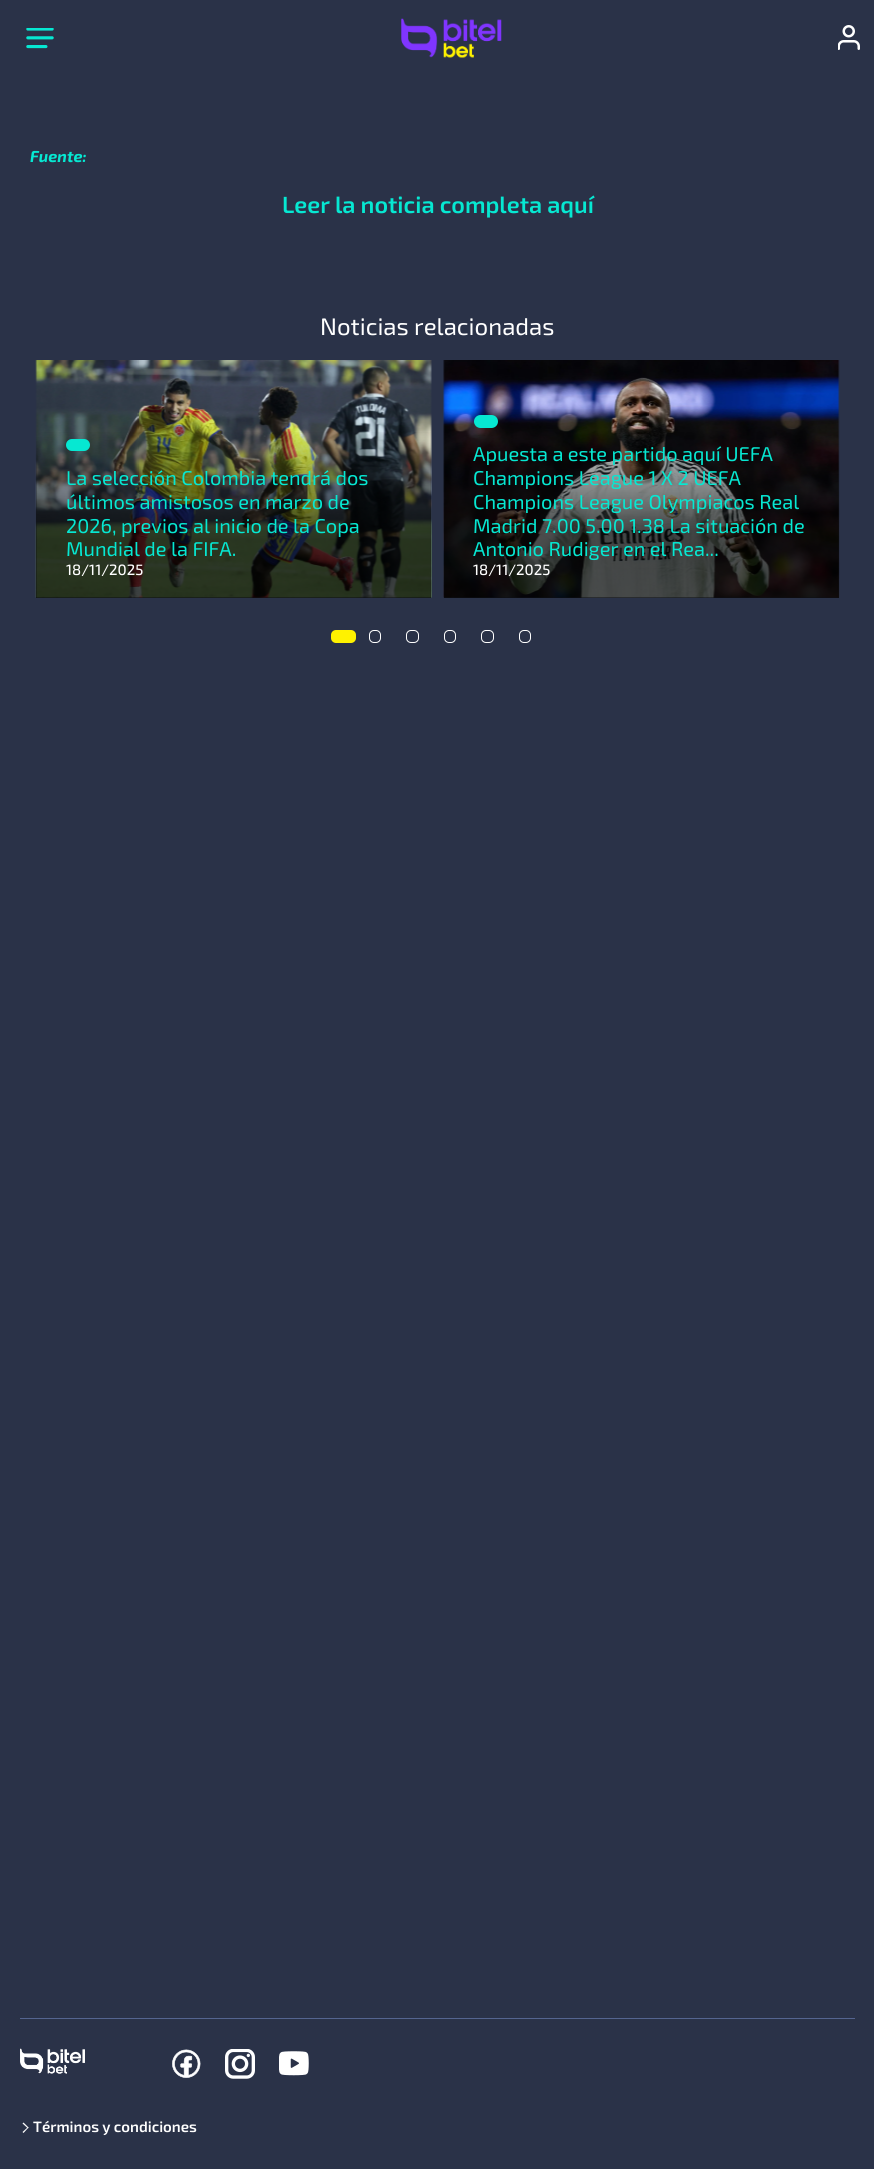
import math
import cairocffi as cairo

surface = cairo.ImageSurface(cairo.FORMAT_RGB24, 874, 2169)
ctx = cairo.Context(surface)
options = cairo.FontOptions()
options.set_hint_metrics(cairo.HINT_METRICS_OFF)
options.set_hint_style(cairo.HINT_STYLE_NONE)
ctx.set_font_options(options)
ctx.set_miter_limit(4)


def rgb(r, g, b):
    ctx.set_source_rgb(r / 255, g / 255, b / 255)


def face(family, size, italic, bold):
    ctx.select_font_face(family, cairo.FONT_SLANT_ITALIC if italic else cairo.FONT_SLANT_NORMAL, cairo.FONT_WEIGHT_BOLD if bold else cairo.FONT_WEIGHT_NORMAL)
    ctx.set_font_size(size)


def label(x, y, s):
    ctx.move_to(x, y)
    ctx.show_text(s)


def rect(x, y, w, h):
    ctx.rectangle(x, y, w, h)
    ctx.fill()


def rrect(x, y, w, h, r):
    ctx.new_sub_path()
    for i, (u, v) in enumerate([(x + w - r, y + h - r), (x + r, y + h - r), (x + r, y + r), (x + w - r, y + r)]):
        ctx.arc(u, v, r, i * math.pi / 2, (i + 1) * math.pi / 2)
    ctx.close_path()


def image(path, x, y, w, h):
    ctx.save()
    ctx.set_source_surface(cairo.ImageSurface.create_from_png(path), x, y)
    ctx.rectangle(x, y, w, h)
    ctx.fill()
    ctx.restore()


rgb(42, 50, 72)
ctx.paint()
image('image0.png', 26, 28, 28, 21)
image('image1.png', 401, 18, 101, 40)
image('image2.png', 838, 25, 22, 25)
face('Exo 2', 16, 1, 1)
rgb(6, 232, 210)
label(30, 162, 'Fuente:')
face('Exo 2 SemiBold', 23.4, 0, 0)
label(282, 213, 'Leer la noticia completa aquí')
face('Exo 2', 24, 0, 0)
rgb(255, 255, 255)
label(320, 335, 'Noticias relacionadas')
image('image3.png', 35, 360, 397, 238)
gradient = cairo.LinearGradient(234, 429, 234, 598)
gradient.add_color_stop_rgba(0, 0, 0, 0, 0)
gradient.add_color_stop_rgba(0.65, 0, 0, 0, 0.7)
ctx.set_source(gradient)
rect(36, 432, 395, 166)
rgb(6, 232, 210)
rrect(66, 439, 24, 12, 6)
ctx.fill()
face('Exo 2', 20, 0, 0)
label(66, 485, 'La selección Colombia tendrá dos')
label(66, 509, 'últimos amistosos en marzo de')
label(66, 533, '2026, previos al inicio de la Copa')
label(66, 556, 'Mundial de la FIFA.')
face('Exo 2 Medium', 15, 0, 0)
rgb(255, 255, 255)
label(66, 575, '18/11/2025')
image('image4.png', 443, 360, 397, 238)
gradient = cairo.LinearGradient(641, 405, 641, 598)
gradient.add_color_stop_rgba(0, 0, 0, 0, 0)
gradient.add_color_stop_rgba(0.65, 0, 0, 0, 0.7)
ctx.set_source(gradient)
rect(444, 409, 395, 189)
rgb(6, 232, 210)
rrect(474, 415, 24, 13, 6.5)
ctx.fill()
face('Exo 2', 20, 0, 0)
label(473, 461, 'Apuesta a este partido aquí UEFA')
label(473, 485, 'Champions League 1 X 2 UEFA')
label(473, 509, 'Champions League Olympiacos Real')
label(473, 533, 'Madrid 7.00 5.00 1.38 La situación de')
label(473, 556, 'Antonio Rudiger en el Rea...')
face('Exo 2 Medium', 15, 0, 0)
rgb(255, 255, 255)
label(473, 575, '18/11/2025')
rgb(255, 242, 0)
rrect(331, 630, 25, 13, 5)
ctx.fill()
rrect(369.5, 630.5, 11, 12, 4.5)
rgb(255, 255, 255)
ctx.set_line_width(1)
ctx.stroke()
rrect(406.5, 630.5, 12, 12, 4.5)
ctx.stroke()
rrect(444.5, 630.5, 11, 12, 4.5)
ctx.stroke()
rrect(481.5, 630.5, 12, 12, 4.5)
ctx.stroke()
rrect(519.5, 630.5, 11, 12, 4.5)
ctx.stroke()
rgb(84, 100, 143)
rect(20, 2018, 835, 1)
image('image5.png', 20, 2048, 65, 26)
image('image6.png', 172, 2049, 29, 29)
image('image7.png', 225, 2049, 30, 30)
image('image8.png', 279, 2051, 30, 25)
rgb(255, 255, 255)
ctx.new_path()
ctx.move_to(23.5, 2122.5)
ctx.line_to(28.5, 2127.5)
ctx.line_to(28, 2128.5)
ctx.line_to(22.5, 2123.5)
ctx.close_path()
ctx.fill()
ctx.new_path()
ctx.move_to(28, 2127)
ctx.line_to(28.5, 2127.5)
ctx.line_to(23.5, 2133)
ctx.line_to(22.5, 2132)
ctx.close_path()
ctx.fill()
face('Exo 2 SemiBold', 15, 0, 0)
label(33, 2132, 'Términos y condiciones')
surface.write_to_png('render.png')
